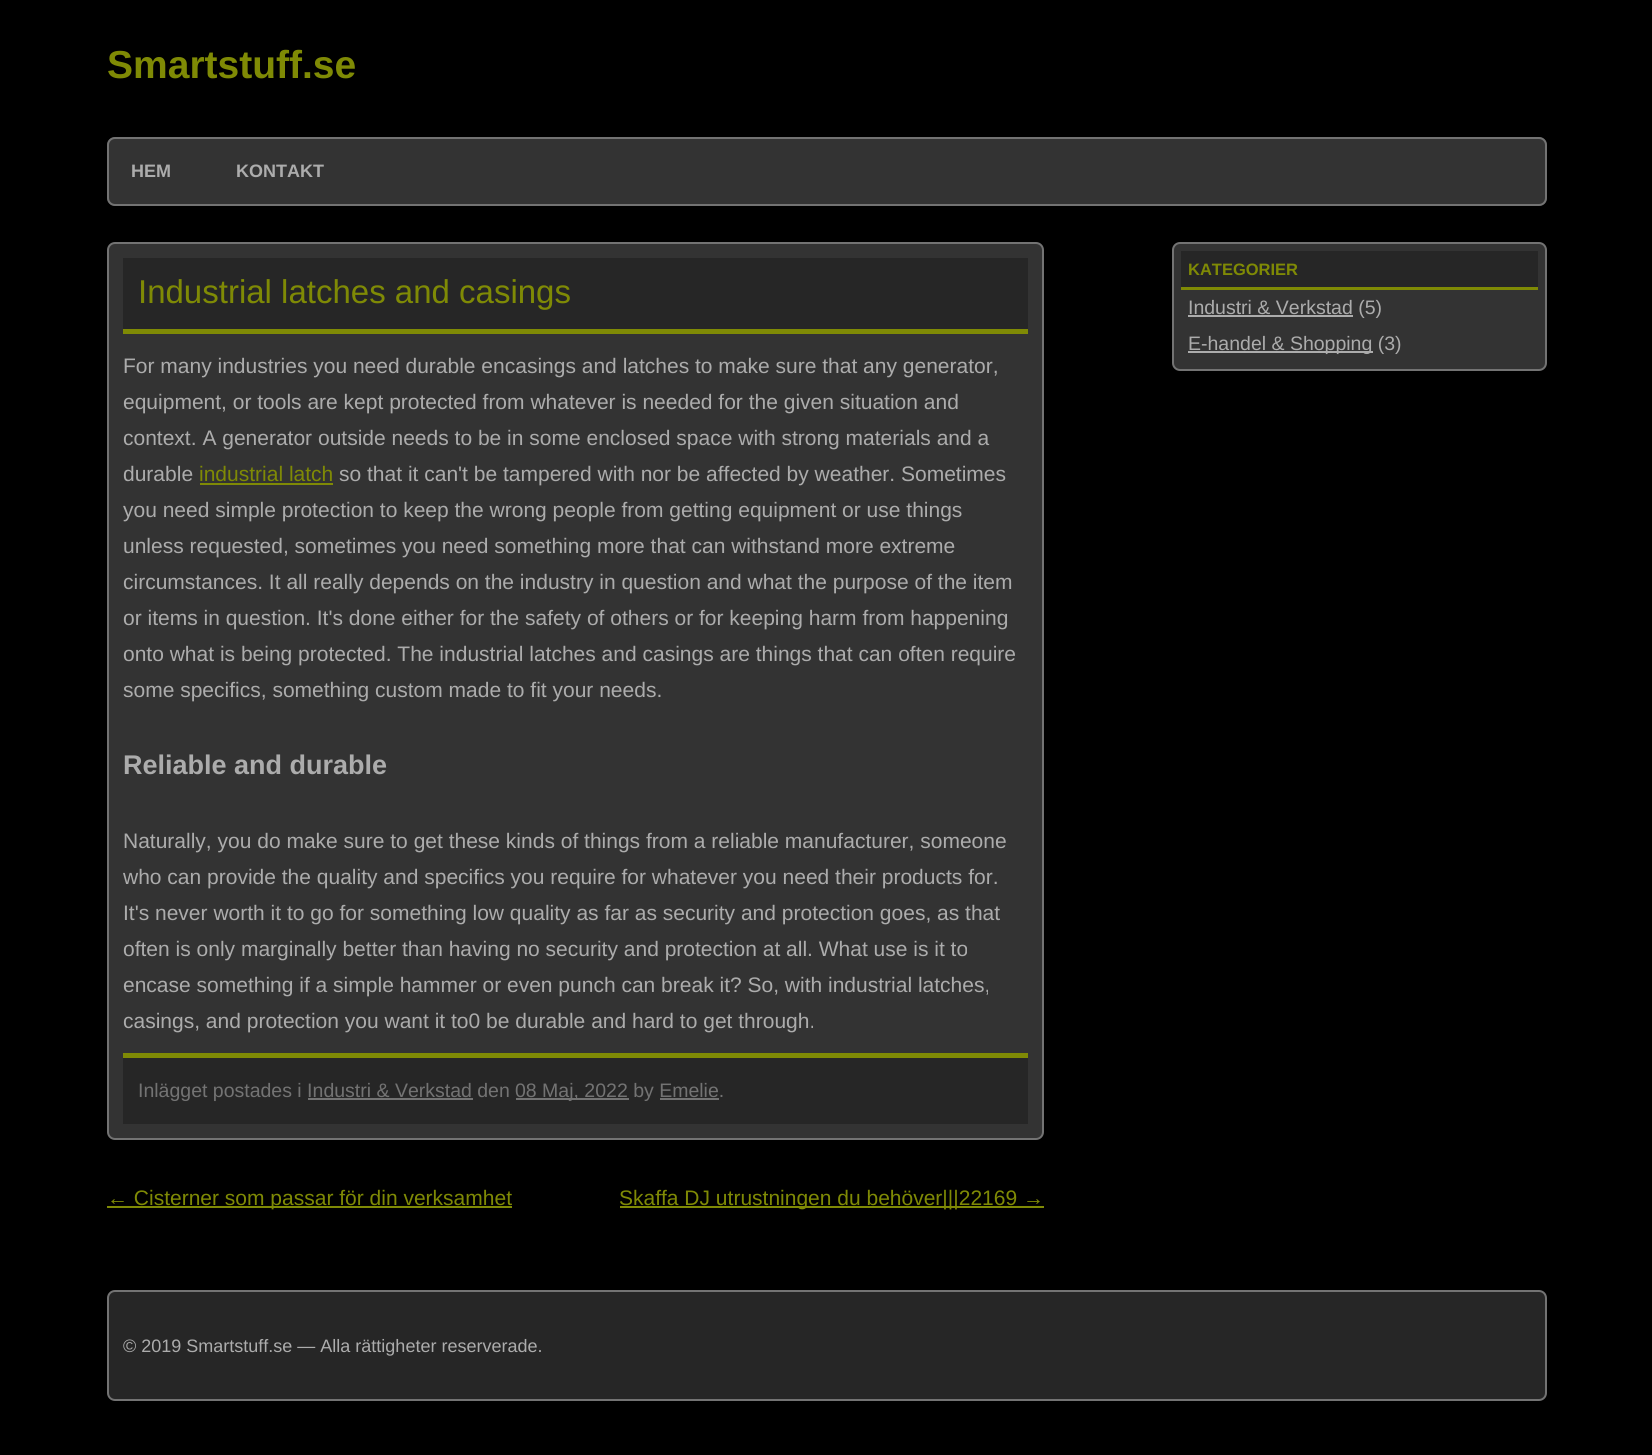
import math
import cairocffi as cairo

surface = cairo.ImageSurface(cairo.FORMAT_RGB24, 1652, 1455)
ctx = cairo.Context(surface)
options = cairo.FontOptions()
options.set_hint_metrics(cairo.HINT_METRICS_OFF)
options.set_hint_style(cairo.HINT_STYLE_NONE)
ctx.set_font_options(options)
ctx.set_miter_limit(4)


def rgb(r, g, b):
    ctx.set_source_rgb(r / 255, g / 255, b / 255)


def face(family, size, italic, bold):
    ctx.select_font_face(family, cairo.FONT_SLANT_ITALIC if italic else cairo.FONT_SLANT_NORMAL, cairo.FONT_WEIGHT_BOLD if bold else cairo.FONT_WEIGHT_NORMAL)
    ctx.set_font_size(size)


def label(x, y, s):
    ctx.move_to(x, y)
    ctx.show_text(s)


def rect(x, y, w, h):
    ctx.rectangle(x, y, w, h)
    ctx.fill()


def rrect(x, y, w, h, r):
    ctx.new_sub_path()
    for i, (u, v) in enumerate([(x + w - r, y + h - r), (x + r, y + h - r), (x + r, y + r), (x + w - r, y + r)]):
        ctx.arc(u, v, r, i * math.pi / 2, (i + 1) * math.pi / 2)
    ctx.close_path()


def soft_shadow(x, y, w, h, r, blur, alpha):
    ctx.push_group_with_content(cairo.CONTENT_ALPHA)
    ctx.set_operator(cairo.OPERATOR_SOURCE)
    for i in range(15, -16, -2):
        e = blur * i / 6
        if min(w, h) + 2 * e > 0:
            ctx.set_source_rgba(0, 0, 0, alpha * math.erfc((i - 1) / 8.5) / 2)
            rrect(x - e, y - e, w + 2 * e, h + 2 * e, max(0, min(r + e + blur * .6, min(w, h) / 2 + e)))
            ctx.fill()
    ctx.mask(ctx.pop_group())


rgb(0, 0, 0)
ctx.paint()
face('Liberation Sans', 39, 0, 1)
rgb(127, 138, 5)
label(107, 78, 'Smartstuff.se')
rgb(51, 51, 51)
rrect(107, 137, 1440, 69, 8)
ctx.fill()
ctx.save()
ctx.set_fill_rule(cairo.FILL_RULE_EVEN_ODD)
ctx.new_path()
ctx.move_to(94, 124)
ctx.line_to(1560, 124)
ctx.line_to(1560, 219)
ctx.line_to(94, 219)
ctx.close_path()
ctx.move_to(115, 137)
ctx.line_to(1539, 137)
ctx.curve_to(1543.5, 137, 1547, 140.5, 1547, 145)
ctx.line_to(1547, 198)
ctx.curve_to(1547, 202.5, 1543.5, 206, 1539, 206)
ctx.line_to(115, 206)
ctx.curve_to(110.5, 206, 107, 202.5, 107, 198)
ctx.line_to(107, 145)
ctx.curve_to(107, 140.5, 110.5, 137, 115, 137)
ctx.close_path()
ctx.clip()
rgb(0, 0, 0)
soft_shadow(107, 137, 1440, 69, 8, 4, 1)
ctx.restore()
rrect(108, 138, 1438, 67, 7)
rgb(115, 115, 115)
ctx.stroke()
face('Liberation Sans', 18, 0, 1)
rgb(172, 172, 172)
label(131, 177, 'HEM')
label(236, 177, 'KONTAKT')
rgb(51, 51, 51)
rrect(108, 243, 935, 896, 7)
ctx.fill_preserve()
rgb(115, 115, 115)
ctx.stroke()
rgb(38, 38, 38)
rect(123, 258, 905, 71)
rgb(127, 138, 5)
rect(123, 329, 905, 5)
face('Liberation Sans', 33, 0, 0)
label(138, 303, 'Industrial latches and casings')
face('Liberation Sans', 21, 0, 0)
rgb(172, 172, 172)
label(123, 373, 'For many industries you need durable encasings and latches to make sure that any generator,')
label(123, 409, 'equipment, or tools are kept protected from whatever is needed for the given situation and')
label(123, 445, 'context. A generator outside needs to be in some enclosed space with strong materials and a')
label(123, 481, 'durable')
rgb(127, 138, 5)
label(199, 481, 'industrial latch')
rect(200, 483, 133, 2)
rgb(172, 172, 172)
label(339, 481, 'so that it can\'t be tampered with nor be affected by weather. Sometimes')
label(123, 517, 'you need simple protection to keep the wrong people from getting equipment or use things')
label(123, 553, 'unless requested, sometimes you need something more that can withstand more extreme')
label(123, 589, 'circumstances. It all really depends on the industry in question and what the purpose of the item')
label(123, 625, 'or items in question. It\'s done either for the safety of others or for keeping harm from happening')
label(123, 661, 'onto what is being protected. The industrial latches and casings are things that can often require')
label(123, 697, 'some specifics, something custom made to fit your needs.')
face('Liberation Sans', 27, 0, 1)
label(123, 774, 'Reliable and durable')
face('Liberation Sans', 21, 0, 0)
label(123, 848, 'Naturally, you do make sure to get these kinds of things from a reliable manufacturer, someone')
label(123, 884, 'who can provide the quality and specifics you require for whatever you need their products for.')
label(123, 920, 'It\'s never worth it to go for something low quality as far as security and protection goes, as that')
label(123, 956, 'often is only marginally better than having no security and protection at all. What use is it to')
label(123, 992, 'encase something if a simple hammer or even punch can break it? So, with industrial latches,')
label(123, 1028, 'casings, and protection you want it to0 be durable and hard to get through.')
rgb(38, 38, 38)
rect(123, 1058, 905, 66)
rgb(127, 138, 5)
rect(123, 1053, 905, 5)
face('Liberation Sans', 19.5, 0, 0)
rgb(115, 115, 115)
label(138, 1097, 'Inlägget postades i Industri & Verkstad den')
rect(516, 1098, 113, 2)
label(515, 1097, '08 Maj, 2022 by Emelie.')
rect(308, 1098, 165, 2)
rect(660, 1098, 59, 2)
rgb(127, 138, 5)
rect(107, 1206, 405, 2)
face('Liberation Sans', 21, 0, 0)
label(107, 1205, '← Cisterner som passar för din verksamhet')
rect(620, 1206, 424, 2)
label(619, 1205, 'Skaffa DJ utrustningen du behöver|||22169 →')
rgb(51, 51, 51)
rrect(1173, 243, 373, 127, 7)
ctx.fill_preserve()
rgb(115, 115, 115)
ctx.stroke()
rgb(38, 38, 38)
rect(1181, 251, 357, 36)
rgb(127, 138, 5)
rect(1181, 287, 357, 3)
face('Liberation Sans', 16.5, 0, 1)
label(1188, 275, 'KATEGORIER')
rgb(172, 172, 172)
rect(1188, 315, 165, 2)
face('Liberation Sans', 19.5, 0, 0)
label(1188, 314, 'Industri & Verkstad (5)')
rect(1188, 351, 185, 2)
label(1188, 350, 'E-handel & Shopping (3)')
rgb(38, 38, 38)
rrect(108, 1291, 1438, 109, 7)
ctx.fill_preserve()
rgb(115, 115, 115)
ctx.stroke()
face('Liberation Sans', 18, 0, 0)
rgb(172, 172, 172)
label(123, 1352, '© 2019 Smartstuff.se — Alla rättigheter reserverade.')
surface.write_to_png('render.png')
